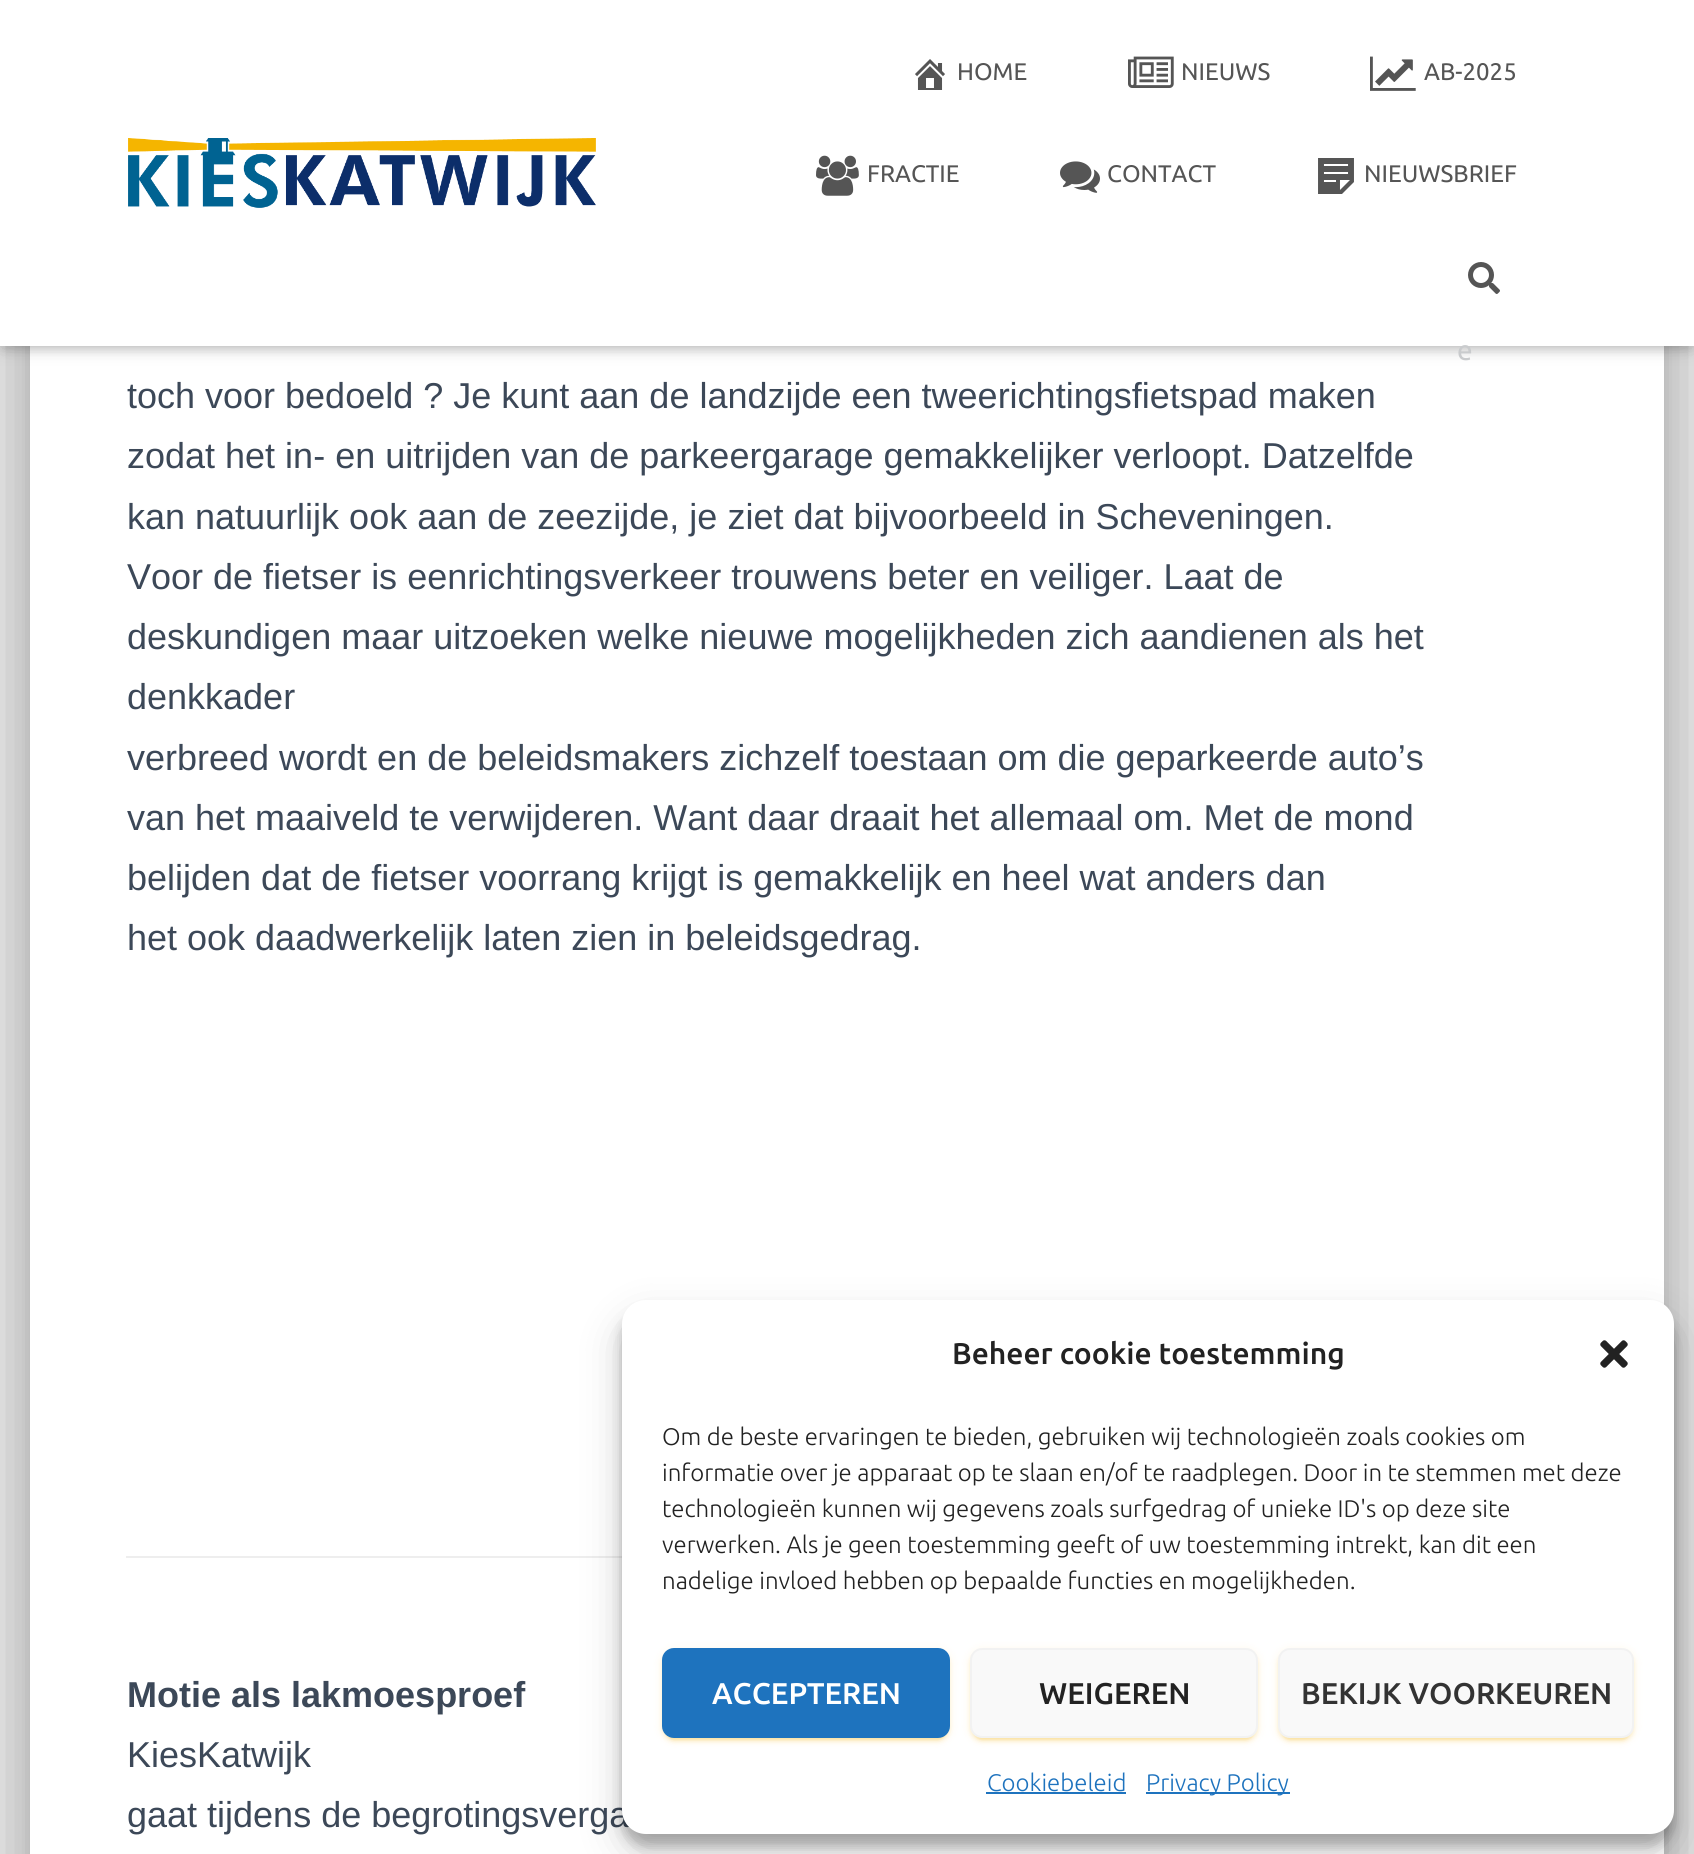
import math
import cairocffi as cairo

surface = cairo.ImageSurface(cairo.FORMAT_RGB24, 1694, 1854)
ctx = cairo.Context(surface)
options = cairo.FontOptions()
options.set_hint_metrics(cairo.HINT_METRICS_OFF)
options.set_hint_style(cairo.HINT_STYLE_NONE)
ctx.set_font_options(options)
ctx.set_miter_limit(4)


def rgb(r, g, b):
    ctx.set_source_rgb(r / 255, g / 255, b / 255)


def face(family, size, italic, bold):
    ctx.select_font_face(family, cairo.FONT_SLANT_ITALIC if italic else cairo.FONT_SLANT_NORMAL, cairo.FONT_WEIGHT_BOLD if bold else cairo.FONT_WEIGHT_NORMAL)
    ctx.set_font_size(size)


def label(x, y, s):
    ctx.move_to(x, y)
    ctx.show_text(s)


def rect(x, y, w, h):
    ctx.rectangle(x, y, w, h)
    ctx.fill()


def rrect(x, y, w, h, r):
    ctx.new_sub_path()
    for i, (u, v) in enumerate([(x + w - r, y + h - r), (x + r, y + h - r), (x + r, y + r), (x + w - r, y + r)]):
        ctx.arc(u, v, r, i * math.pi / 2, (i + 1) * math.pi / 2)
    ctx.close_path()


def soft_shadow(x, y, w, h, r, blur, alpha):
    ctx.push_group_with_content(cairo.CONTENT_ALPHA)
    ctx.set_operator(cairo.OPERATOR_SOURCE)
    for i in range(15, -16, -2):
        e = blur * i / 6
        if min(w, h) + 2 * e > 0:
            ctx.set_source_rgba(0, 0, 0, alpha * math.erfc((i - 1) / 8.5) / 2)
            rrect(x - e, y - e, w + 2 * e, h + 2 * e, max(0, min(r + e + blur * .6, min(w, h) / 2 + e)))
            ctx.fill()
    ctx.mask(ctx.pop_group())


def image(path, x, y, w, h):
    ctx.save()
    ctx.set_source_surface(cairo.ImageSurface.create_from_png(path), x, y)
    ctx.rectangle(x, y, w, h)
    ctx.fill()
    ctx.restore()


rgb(229, 229, 229)
ctx.paint()
rgb(0, 0, 0)
soft_shadow(40, -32, 1614, 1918, 2, 10, 0.2)
soft_shadow(20, -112, 1654, 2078, 22, 30, 0.12)
soft_shadow(26, -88, 1642, 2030, 16, 24, 0.14)
rgb(255, 255, 255)
rect(30, 346, 1634, 1508)
rgb(0, 0, 0)
soft_shadow(4, 12, 1686, 338, 0, 5, 0.1)
soft_shadow(0, 2, 1694, 346, 0, 10, 0.12)
soft_shadow(12, 14, 1670, 322, 0, 10, 0.42)
rgb(255, 255, 255)
rect(0, 0, 1694, 346)
image('image0.png', 128, 138, 468, 70)
image('image1.png', 915, 59, 30, 31)
face('Ubuntu', 24, 0, 0)
rgb(85, 85, 85)
label(957, 80, 'HOME')
image('image2.png', 1128, 56, 46, 32)
label(1181, 80, 'NIEUWS')
image('image3.png', 1370, 56, 46, 35)
label(1424, 80, 'AB-2025')
image('image4.png', 816, 155, 43, 41)
label(867, 182, 'FRACTIE')
image('image5.png', 1060, 161, 40, 32)
label(1107, 182, 'CONTACT')
image('image6.png', 1318, 158, 36, 36)
label(1364, 182, 'NIEUWSBRIEF')
image('image7.png', 1468, 262, 32, 32)
face('Ubuntu', 28, 0, 0)
rgb(201, 203, 205)
label(1457, 360, 'e')
face('Liberation Sans', 36, 0, 0)
rgb(60, 72, 88)
label(127, 408, 'toch voor bedoeld ? Je kunt aan de landzijde een tweerichtingsfietspad maken')
label(127, 468, 'zodat het in- en uitrijden van de parkeergarage gemakkelijker verloopt. Datzelfde')
label(127, 529, 'kan natuurlijk ook aan de zeezijde, je ziet dat bijvoorbeeld in Scheveningen.')
label(127, 589, 'Voor de fietser is eenrichtingsverkeer trouwens beter en veiliger. Laat de')
label(127, 649, 'deskundigen maar uitzoeken welke nieuwe mogelijkheden zich aandienen als het')
label(127, 709, 'denkkader')
label(127, 770, 'verbreed wordt en de beleidsmakers zichzelf toestaan om die geparkeerde auto’s')
label(127, 830, 'van het maaiveld te verwijderen. Want daar draait het allemaal om. Met de mond')
label(127, 890, 'belijden dat de fietser voorrang krijgt is gemakkelijk en heel wat anders dan')
label(127, 950, 'het ook daadwerkelijk laten zien in beleidsgedrag.')
rgb(238, 238, 238)
rect(126, 1556, 496, 2)
face('Liberation Sans', 36, 0, 1)
rgb(60, 72, 88)
label(127, 1707, 'Motie als lakmoesproef')
face('Liberation Sans', 36, 0, 0)
label(127, 1767, 'KiesKatwijk')
label(127, 1827, 'gaat tijdens de begrotingsverga')
rgb(0, 0, 0)
soft_shadow(622, 1312, 1052, 534, 24, 6, 0.23)
soft_shadow(622, 1320, 1052, 534, 24, 20, 0.19)
rgb(255, 255, 255)
rrect(622, 1300, 1052, 534, 24)
ctx.fill()
face('Ubuntu Medium', 30, 0, 0)
rgb(34, 34, 34)
label(952, 1364, 'Beheer cookie toestemming')
image('image8.png', 1600, 1340, 28, 28)
face('Ubuntu Light', 24, 0, 0)
label(662, 1445, 'Om de beste ervaringen te bieden, gebruiken wij technologieën zoals cookies om')
label(662, 1481, 'informatie over je apparaat op te slaan en/of te raadplegen. Door in te stemmen met deze')
label(662, 1517, 'technologieën kunnen wij gegevens zoals surfgedrag of unieke ID\'s op deze site')
label(662, 1553, 'verwerken. Als je geen toestemming geeft of uw toestemming intrekt, kan dit een')
label(662, 1589, 'nadelige invloed hebben op bepaalde functies en mogelijkheden.')
rgb(245, 179, 19)
soft_shadow(662, 1650, 288, 90, 12, 5, 0.12)
soft_shadow(666, 1658, 280, 82, 8, 1, 0.2)
soft_shadow(662, 1652, 288, 90, 12, 2, 0.14)
rgb(30, 115, 190)
rrect(663, 1649, 286, 88, 11)
ctx.fill_preserve()
ctx.stroke()
face('Ubuntu Medium', 30, 0, 0)
rgb(255, 255, 255)
label(712, 1704, 'ACCEPTEREN')
rgb(245, 179, 19)
soft_shadow(970, 1650, 288, 90, 12, 5, 0.12)
soft_shadow(974, 1658, 280, 82, 8, 1, 0.2)
soft_shadow(970, 1652, 288, 90, 12, 2, 0.14)
rgb(249, 249, 249)
rrect(971, 1649, 286, 88, 11)
ctx.fill_preserve()
rgb(242, 242, 242)
ctx.stroke()
rgb(34, 34, 34)
label(1039, 1704, 'WEIGEREN')
rgb(245, 179, 19)
soft_shadow(1278, 1650, 356, 90, 12, 5, 0.12)
soft_shadow(1282, 1658, 348, 82, 8, 1, 0.2)
soft_shadow(1278, 1652, 356, 90, 12, 2, 0.14)
rgb(249, 249, 249)
rrect(1279, 1649, 354, 88, 11)
ctx.fill_preserve()
rgb(242, 242, 242)
ctx.stroke()
rgb(51, 51, 51)
label(1301, 1704, 'BEKIJK VOORKEUREN')
face('Ubuntu Light', 24, 0, 0)
rgb(30, 115, 190)
label(987, 1791, 'Cookiebeleid')
rect(986, 1792, 140, 2)
rect(1146, 1792, 144, 2)
label(1146, 1791, 'Privacy Policy')
surface.write_to_png('render.png')
